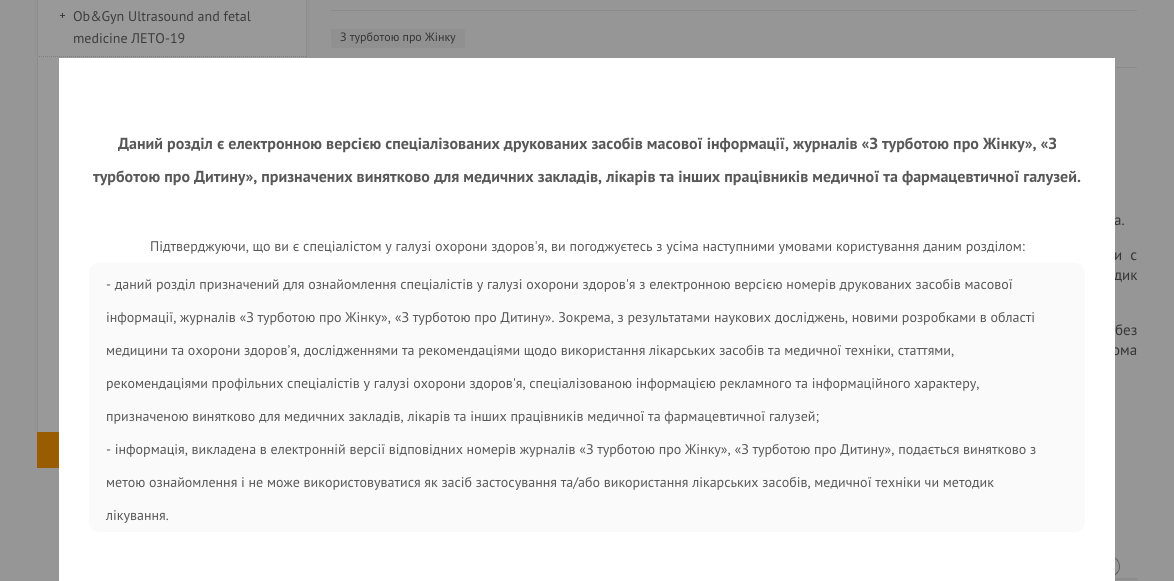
import math
import cairocffi as cairo

surface = cairo.ImageSurface(cairo.FORMAT_RGB24, 1174, 581)
ctx = cairo.Context(surface)
options = cairo.FontOptions()
options.set_hint_metrics(cairo.HINT_METRICS_OFF)
options.set_hint_style(cairo.HINT_STYLE_NONE)
ctx.set_font_options(options)
ctx.set_miter_limit(4)


def rgb(r, g, b):
    ctx.set_source_rgb(r / 255, g / 255, b / 255)


def face(family, size, italic, bold):
    ctx.select_font_face(family, cairo.FONT_SLANT_ITALIC if italic else cairo.FONT_SLANT_NORMAL, cairo.FONT_WEIGHT_BOLD if bold else cairo.FONT_WEIGHT_NORMAL)
    ctx.set_font_size(size)


def label(x, y, s):
    ctx.move_to(x, y)
    ctx.show_text(s)


def tracked(x, y, s, letter, word):
    ctx.move_to(x, y)
    for ch in s:
        ctx.show_text(ch)
        ctx.rel_move_to(letter + word * (ch == ' '), 0)


def rect(x, y, w, h):
    ctx.rectangle(x, y, w, h)
    ctx.fill()


def rrect(x, y, w, h, r):
    ctx.new_sub_path()
    for i, (u, v) in enumerate([(x + w - r, y + h - r), (x + r, y + h - r), (x + r, y + r), (x + w - r, y + r)]):
        ctx.arc(u, v, r, i * math.pi / 2, (i + 1) * math.pi / 2)
    ctx.close_path()


def image(path, x, y, w, h):
    ctx.save()
    ctx.set_source_surface(cairo.ImageSurface.create_from_png(path), x, y)
    ctx.rectangle(x, y, w, h)
    ctx.fill()
    ctx.restore()


rgb(150, 150, 150)
ctx.paint()
rgb(153, 153, 153)
rect(38, 0, 268, 432)
rgb(140, 140, 140)
rect(306, 0, 1, 58)
ctx.new_path()
ctx.move_to(37, 56.5)
ctx.line_to(307, 56.5)
rgb(126, 126, 126)
ctx.set_line_width(1)
ctx.set_dash([1, 1])
ctx.stroke()
rgb(140, 140, 140)
rect(37, 0, 1, 432)
image('image0.png', 60, 13, 5, 5)
face('PT Sans', 14, 0, 0)
rgb(61, 61, 61)
label(73, 21, 'Ob&Gyn Ultrasound and fetal')
label(73, 43, 'medicine ЛЕТО-19')
rgb(153, 92, 0)
rect(37, 432, 22, 36)
rgb(139, 139, 139)
rect(331, 10, 806, 1)
rect(1115, 67, 22, 1)
rgb(144, 144, 144)
rrect(331, 29, 134, 19, 2)
ctx.fill()
face('PT Sans', 12, 0, 0)
rgb(53, 53, 53)
label(340, 41, 'З турботою про Жінку')
face('PT Sans', 15, 0, 0)
label(1114, 225, 'а.')
tracked(1114, 260, 'и с', 0, 4)
tracked(1114, 280, 'дик', 0, 2)
tracked(1115, 335, 'без', 0, 18)
tracked(1112, 355, 'ома', 0, 5)
image('image1.png', 1115, 557, 5, 19)
rgb(140, 140, 140)
rect(1115, 578, 22, 2)
rgb(255, 255, 255)
rect(59, 58, 1056, 523)
face('PT Sans', 16, 0, 1)
rgb(88, 88, 88)
label(118, 149, 'Даний розділ є електронною версією спеціалізованих друкованих засобів масової інформації, журналів «З турботою про Жінку», «З')
label(93, 182, 'турботою про Дитину», призначених винятково для медичних закладів, лікарів та інших працівників медичної та фармацевтичної галузей.')
face('PT Sans', 14, 0, 0)
label(150, 251, 'Підтверджуючи, що ви є спеціалістом у галузі охорони здоров\'я, ви погоджуєтесь з усіма наступними умовами користування даним розділом:')
rgb(250, 250, 250)
rrect(89, 263, 996, 269, 10)
ctx.fill()
rgb(88, 88, 88)
label(106, 289, '- даний розділ призначений для ознайомлення спеціалістів у галузі охорони здоров\'я з електронною версією номерів друкованих засобів масової')
label(106, 322, 'інформації, журналів «З турботою про Жінку», «З турботою про Дитину». Зокрема, з результатами наукових досліджень, новими розробками в області')
label(106, 355, 'медицини та охорони здоров’я, дослідженнями та рекомендаціями щодо використання лікарських засобів та медичної техніки, статтями,')
label(106, 388, 'рекомендаціями профільних спеціалістів у галузі охорони здоров\'я, спеціалізованою інформацією рекламного та інформаційного характеру,')
label(106, 421, 'призначеною винятково для медичних закладів, лікарів та інших працівників медичної та фармацевтичної галузей;')
label(106, 454, '- інформація, викладена в електронній версії відповідних номерів журналів «З турботою про Жінку», «З турботою про Дитину», подається винятково з')
label(106, 487, 'метою ознайомлення і не може використовуватися як засіб застосування та/або використання лікарських засобів, медичної техніки чи методик')
label(106, 520, 'лікування.')
surface.write_to_png('render.png')
